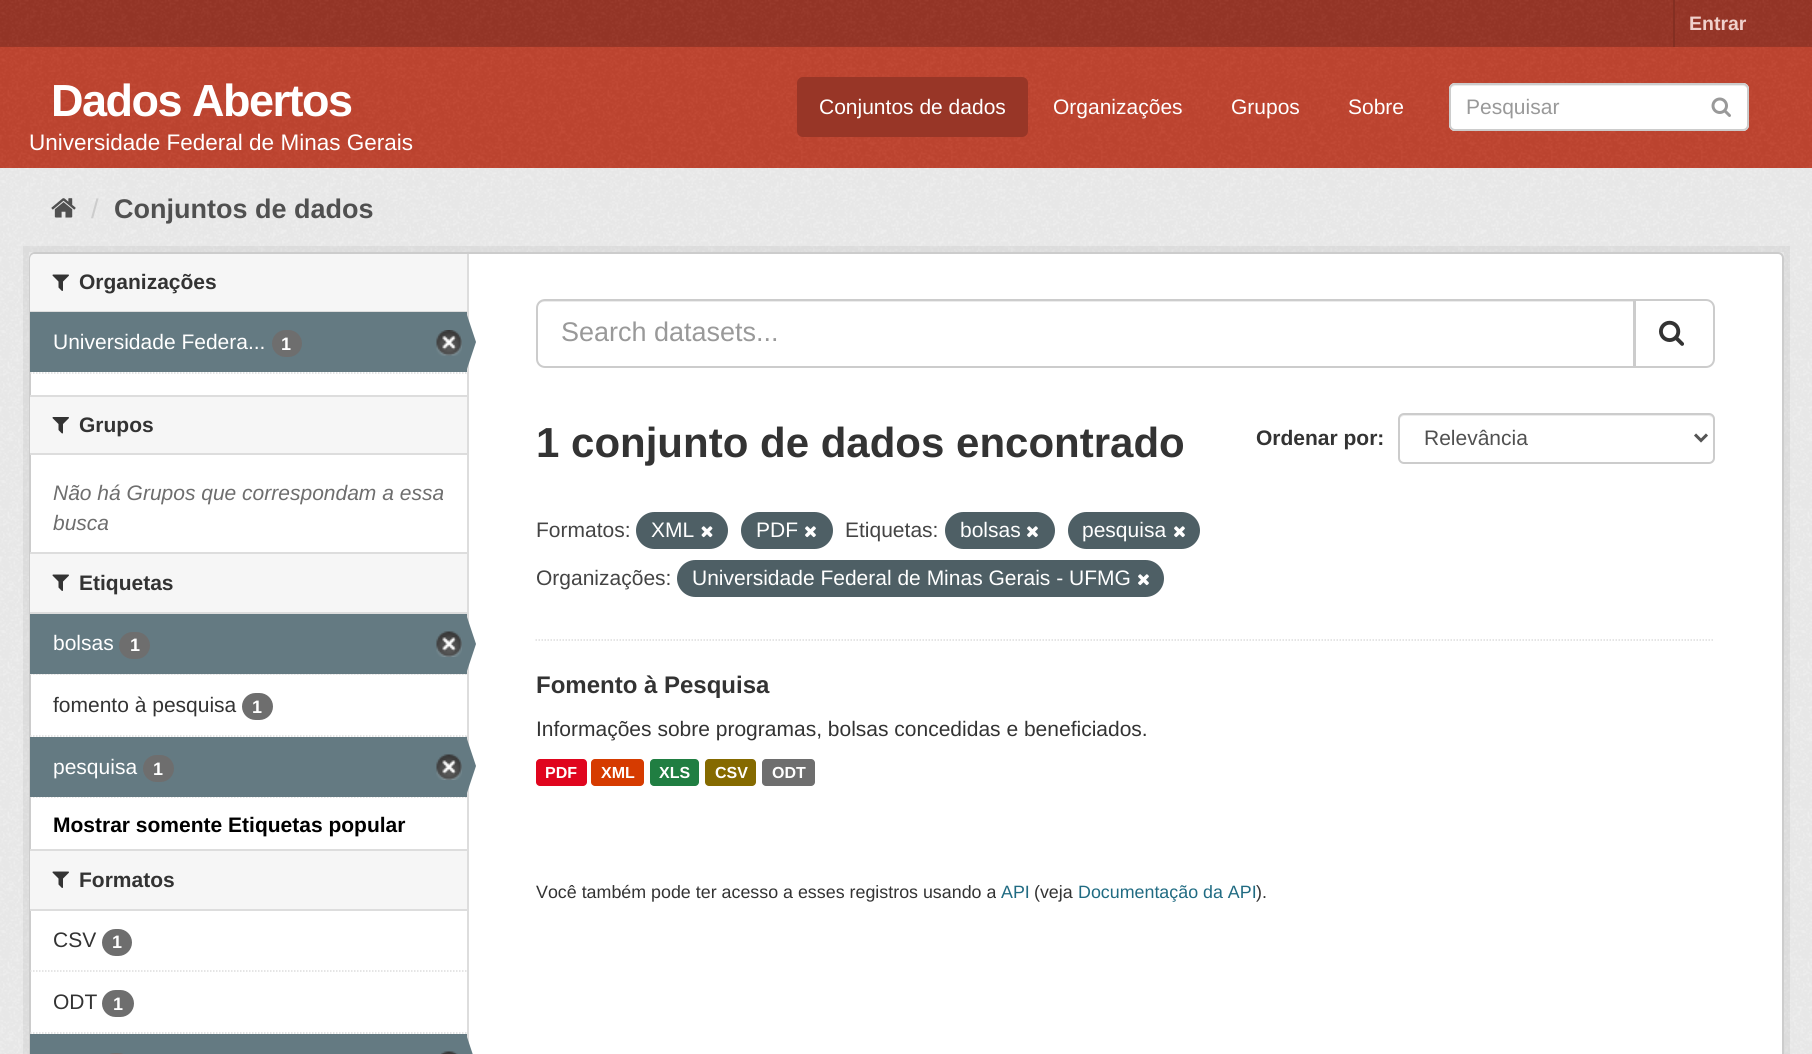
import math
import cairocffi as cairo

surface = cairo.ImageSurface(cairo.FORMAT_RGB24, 1812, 1054)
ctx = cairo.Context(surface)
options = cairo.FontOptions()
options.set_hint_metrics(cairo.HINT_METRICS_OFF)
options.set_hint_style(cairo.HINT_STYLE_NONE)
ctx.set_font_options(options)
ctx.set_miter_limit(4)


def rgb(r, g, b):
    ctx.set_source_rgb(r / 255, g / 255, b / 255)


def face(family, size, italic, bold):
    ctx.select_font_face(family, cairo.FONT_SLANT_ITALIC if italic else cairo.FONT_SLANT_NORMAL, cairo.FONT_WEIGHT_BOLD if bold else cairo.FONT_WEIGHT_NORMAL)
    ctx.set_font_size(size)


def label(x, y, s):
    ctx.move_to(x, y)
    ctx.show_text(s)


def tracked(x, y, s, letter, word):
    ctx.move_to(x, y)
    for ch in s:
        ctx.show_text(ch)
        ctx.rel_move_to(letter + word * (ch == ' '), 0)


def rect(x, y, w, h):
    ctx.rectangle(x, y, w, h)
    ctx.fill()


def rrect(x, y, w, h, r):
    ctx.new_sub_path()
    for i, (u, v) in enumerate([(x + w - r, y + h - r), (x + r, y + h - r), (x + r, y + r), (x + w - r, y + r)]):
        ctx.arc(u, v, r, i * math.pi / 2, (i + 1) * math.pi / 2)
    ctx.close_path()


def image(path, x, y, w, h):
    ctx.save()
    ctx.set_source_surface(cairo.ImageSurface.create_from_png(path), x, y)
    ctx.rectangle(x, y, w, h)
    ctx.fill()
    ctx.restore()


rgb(152, 54, 39)
ctx.paint()
image('image0.png', 0, 0, 1812, 46)
rgb(132, 47, 34)
rect(1673, 0, 2, 47)
face('Liberation Sans', 19.5, 0, 1)
rgb(240, 209, 204)
label(1689, 30, 'Entrar')
rgb(193, 69, 49)
rect(0, 47, 1812, 121)
image('image1.png', 0, 47, 1812, 121)
face('Liberation Sans', 45, 0, 1)
rgb(255, 255, 255)
tracked(51, 116, 'Dados Abertos', -1.5, 0)
face('Liberation Sans', 22.5, 0, 0)
label(29, 150, 'Universidade Federal de Minas Gerais')
rgb(152, 54, 39)
rrect(797, 77, 231, 60, 6)
ctx.fill()
face('Liberation Sans', 21, 0, 0)
rgb(255, 255, 255)
label(819, 114, 'Conjuntos de dados')
label(1053, 114, 'Organizações')
label(1231, 114, 'Grupos')
label(1348, 114, 'Sobre')
rrect(1449, 83, 300, 48, 6)
ctx.fill()
rgb(236, 236, 236)
ctx.new_path()
ctx.move_to(1455, 86)
ctx.line_to(1743, 86)
ctx.curve_to(1745, 86, 1748, 88, 1748, 90)
ctx.line_to(1748, 89)
ctx.curve_to(1748, 86, 1746, 84, 1743, 84)
ctx.line_to(1456, 84)
ctx.curve_to(1454, 84, 1452, 86, 1451, 88)
ctx.curve_to(1452, 87, 1454, 86, 1455, 86)
ctx.close_path()
ctx.fill()
rrect(1450, 84, 298, 46, 5)
rgb(204, 204, 204)
ctx.stroke()
rgb(153, 153, 153)
label(1466, 114, 'Pesquisar')
image('image2.png', 1711, 97, 20, 20)
rgb(238, 238, 238)
rect(0, 168, 1812, 886)
image('image3.png', 0, 168, 1812, 886)
image('image4.png', 51, 198, 25, 20)
face('Liberation Sans', 27, 0, 0)
rgb(204, 204, 204)
label(91, 218, '/')
face('Liberation Sans', 27, 0, 1)
rgb(80, 80, 80)
label(114, 218, 'Conjuntos de dados')
ctx.rectangle(26, 249, 1761, 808)
ctx.set_source_rgba(0, 0, 0, 0.05)
ctx.set_line_width(6)
ctx.stroke()
rgb(255, 255, 255)
rrect(30, 253, 1753, 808, 5)
ctx.fill_preserve()
rgb(204, 204, 204)
ctx.set_line_width(2)
ctx.stroke()
rgb(246, 246, 246)
ctx.new_path()
ctx.move_to(35, 254)
ctx.line_to(467, 254)
ctx.line_to(467, 312)
ctx.line_to(30, 312)
ctx.line_to(30, 259)
ctx.curve_to(30, 256, 32, 254, 35, 254)
ctx.close_path()
ctx.fill()
rgb(221, 221, 221)
rect(30, 311, 437, 1)
image('image5.png', 52, 274, 17, 17)
face('Liberation Sans', 21, 0, 1)
rgb(51, 51, 51)
label(79, 289, 'Organizações')
rgb(100, 122, 130)
rect(30, 312, 437, 60)
face('Liberation Sans', 21, 0, 0)
rgb(255, 255, 255)
label(53, 349, 'Universidade Federa...')
rgb(110, 110, 110)
rrect(272, 330, 30, 27, 13.5)
ctx.fill()
face('Liberation Sans', 18, 0, 1)
rgb(255, 255, 255)
label(281, 350, '1')
image('image6.png', 436, 330, 26, 26)
rgb(221, 221, 221)
rect(467, 254, 2, 789)
rgb(100, 122, 130)
ctx.new_path()
ctx.move_to(466, 372)
ctx.line_to(466, 312)
ctx.line_to(476, 342)
ctx.close_path()
ctx.fill()
ctx.new_path()
ctx.move_to(30, 373)
ctx.line_to(466.5, 373)
rgb(221, 221, 221)
ctx.set_line_width(1.5)
ctx.set_dash([1.5, 1.5])
ctx.stroke()
rgb(246, 246, 246)
rect(30, 397, 437, 56)
rgb(221, 221, 221)
rect(30, 395, 437, 2)
rect(30, 453, 437, 2)
image('image7.png', 52, 417, 17, 17)
face('Liberation Sans', 21, 0, 1)
rgb(51, 51, 51)
label(79, 432, 'Grupos')
face('Liberation Sans', 21, 1, 0)
rgb(110, 110, 110)
label(53, 500, 'Não há Grupos que correspondam a essa')
label(53, 530, 'busca')
rgb(246, 246, 246)
rect(30, 554, 437, 58)
rgb(221, 221, 221)
rect(30, 552, 437, 2)
rect(30, 612, 437, 2)
image('image5.png', 52, 574, 17, 17)
face('Liberation Sans', 21, 0, 1)
rgb(51, 51, 51)
label(79, 590, 'Etiquetas')
rgb(246, 246, 246)
rect(30, 674, 437, 1)
ctx.new_path()
ctx.move_to(30, 674)
ctx.line_to(466.5, 674)
rgb(221, 221, 221)
ctx.stroke()
rgb(100, 122, 130)
rect(30, 614, 437, 60)
face('Liberation Sans', 21, 0, 0)
rgb(255, 255, 255)
label(53, 650, 'bolsas')
rgb(110, 110, 110)
rrect(119, 632, 31, 27, 13.5)
ctx.fill()
face('Liberation Sans', 18, 0, 1)
rgb(255, 255, 255)
label(130, 651, '1')
image('image8.png', 436, 631, 26, 26)
rgb(100, 122, 130)
ctx.new_path()
ctx.move_to(466, 674)
ctx.line_to(466, 614)
ctx.line_to(476, 644)
ctx.close_path()
ctx.fill()
ctx.new_path()
ctx.move_to(30, 736)
ctx.line_to(466.5, 736)
rgb(221, 221, 221)
ctx.stroke()
face('Liberation Sans', 21, 0, 0)
rgb(51, 51, 51)
label(53, 712, 'fomento à pesquisa')
rgb(110, 110, 110)
rrect(242, 693, 31, 27, 13.5)
ctx.fill()
face('Liberation Sans', 18, 0, 1)
rgb(255, 255, 255)
label(252, 713, '1')
ctx.new_path()
ctx.move_to(30, 797)
ctx.line_to(466.5, 797)
rgb(221, 221, 221)
ctx.stroke()
rgb(100, 122, 130)
rect(30, 737, 437, 60)
face('Liberation Sans', 21, 0, 0)
rgb(255, 255, 255)
label(53, 774, 'pesquisa')
rgb(110, 110, 110)
rrect(143, 755, 31, 27, 13.5)
ctx.fill()
face('Liberation Sans', 18, 0, 1)
rgb(255, 255, 255)
label(153, 775, '1')
image('image8.png', 436, 754, 26, 26)
rgb(100, 122, 130)
ctx.new_path()
ctx.move_to(466, 796)
ctx.line_to(466, 736)
ctx.line_to(476, 766)
ctx.close_path()
ctx.fill()
face('Liberation Sans', 21, 0, 1)
rgb(0, 0, 0)
label(53, 832, 'Mostrar somente Etiquetas popular')
rgb(246, 246, 246)
rect(30, 851, 437, 58)
rgb(221, 221, 221)
rect(30, 849, 437, 2)
rect(30, 909, 437, 2)
image('image5.png', 52, 871, 17, 17)
rgb(51, 51, 51)
label(79, 887, 'Formatos')
ctx.new_path()
ctx.move_to(30, 971)
ctx.line_to(466.5, 971)
rgb(221, 221, 221)
ctx.stroke()
face('Liberation Sans', 21, 0, 0)
rgb(51, 51, 51)
label(53, 947, 'CSV')
rgb(110, 110, 110)
rrect(102, 929, 30, 27, 13.5)
ctx.fill()
face('Liberation Sans', 18, 0, 1)
rgb(255, 255, 255)
label(112, 948, '1')
ctx.new_path()
ctx.move_to(30, 1033)
ctx.line_to(466.5, 1033)
rgb(221, 221, 221)
ctx.stroke()
face('Liberation Sans', 21, 0, 0)
rgb(51, 51, 51)
label(53, 1009, 'ODT')
rgb(110, 110, 110)
rrect(102, 990, 32, 27, 13.5)
ctx.fill()
face('Liberation Sans', 18, 0, 1)
rgb(255, 255, 255)
label(113, 1010, '1')
rgb(100, 122, 130)
rect(30, 1034, 437, 20)
image('image9.png', 441, 1051, 17, 3)
ctx.new_path()
ctx.move_to(466, 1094)
ctx.line_to(466, 1034)
ctx.line_to(476, 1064)
ctx.close_path()
ctx.fill()
rgb(110, 110, 110)
rrect(101, 1053, 31, 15, 13.5)
ctx.fill()
ctx.new_path()
ctx.move_to(535.5, 640)
ctx.line_to(1714.5, 640)
rgb(221, 221, 221)
ctx.stroke()
rgb(236, 236, 236)
ctx.new_path()
ctx.move_to(544, 302)
ctx.line_to(1634, 302)
ctx.line_to(1634, 300)
ctx.line_to(545, 300)
ctx.curve_to(541, 300, 537, 304, 537, 308)
ctx.line_to(537, 309)
ctx.curve_to(537, 305, 540, 302, 544, 302)
ctx.close_path()
ctx.fill()
ctx.new_path()
ctx.move_to(545, 300)
ctx.line_to(1634, 300)
ctx.line_to(1634, 367)
ctx.line_to(545, 367)
ctx.curve_to(540.5, 367, 537, 363.5, 537, 359)
ctx.line_to(537, 308)
ctx.curve_to(537, 303.5, 540.5, 300, 545, 300)
ctx.close_path()
rgb(204, 204, 204)
ctx.set_line_width(2)
ctx.set_dash([])
ctx.stroke()
face('Liberation Sans', 27, 0, 0)
rgb(153, 153, 153)
label(561, 341, 'Search datasets...')
rgb(255, 255, 255)
ctx.new_path()
ctx.move_to(1635, 300)
ctx.line_to(1706, 300)
ctx.curve_to(1710.5, 300, 1714, 303.5, 1714, 308)
ctx.line_to(1714, 359)
ctx.curve_to(1714, 363.5, 1710.5, 367, 1706, 367)
ctx.line_to(1635, 367)
ctx.close_path()
ctx.fill_preserve()
rgb(204, 204, 204)
ctx.stroke()
image('image10.png', 1659, 320, 25, 26)
face('Liberation Sans', 42, 0, 1)
rgb(51, 51, 51)
label(536, 457, '1 conjunto de dados encontrado')
face('Liberation Sans', 21, 0, 1)
label(1256, 445, 'Ordenar por:')
rgb(236, 236, 236)
ctx.new_path()
ctx.move_to(1404, 416)
ctx.line_to(1708, 416)
ctx.curve_to(1711, 416, 1713, 418, 1713, 420)
ctx.curve_to(1713, 417, 1711, 414, 1708, 414)
ctx.line_to(1405, 414)
ctx.curve_to(1402, 414, 1400, 417, 1400, 420)
ctx.curve_to(1400, 418, 1402, 416, 1404, 416)
ctx.close_path()
ctx.fill()
rrect(1399, 414, 315, 49, 5)
rgb(204, 204, 204)
ctx.stroke()
ctx.new_path()
ctx.move_to(1695, 434.5)
ctx.line_to(1701, 440.5)
ctx.line_to(1707, 434.5)
rgb(85, 85, 85)
ctx.set_line_width(3)
ctx.stroke()
face('Liberation Sans', 21, 0, 0)
rgb(80, 80, 80)
label(1424, 445, 'Relevância')
rgb(68, 68, 68)
label(536, 537, 'Formatos:')
rgb(78, 95, 101)
rrect(636, 512, 92, 37, 18.5)
ctx.fill()
rgb(255, 255, 255)
label(651, 537, 'XML')
image('image11.png', 701, 526, 12, 12)
rgb(78, 95, 101)
rrect(741, 512, 92, 37, 18.5)
ctx.fill()
rgb(255, 255, 255)
label(756, 537, 'PDF')
image('image12.png', 805, 526, 11, 12)
rgb(68, 68, 68)
label(845, 537, 'Etiquetas:')
rgb(78, 95, 101)
rrect(945, 512, 110, 37, 18.5)
ctx.fill()
rgb(255, 255, 255)
label(960, 537, 'bolsas')
image('image12.png', 1027, 526, 11, 12)
rgb(78, 95, 101)
rrect(1068, 512, 132, 37, 18.5)
ctx.fill()
rgb(255, 255, 255)
label(1082, 537, 'pesquisa')
image('image12.png', 1174, 526, 11, 12)
rgb(68, 68, 68)
label(536, 585, 'Organizações:')
rgb(78, 95, 101)
rrect(677, 560, 487, 37, 18.5)
ctx.fill()
rgb(255, 255, 255)
label(692, 585, 'Universidade Federal de Minas Gerais - UFMG')
image('image12.png', 1138, 574, 11, 12)
face('Liberation Sans', 24, 0, 1)
rgb(51, 51, 51)
label(536, 693, 'Fomento à Pesquisa')
face('Liberation Sans', 21, 0, 0)
label(536, 736, 'Informações sobre programas, bolsas concedidas e beneficiados.')
rgb(224, 5, 30)
rrect(536, 759, 51, 27, 4)
ctx.fill()
face('Liberation Sans', 16, 0, 1)
rgb(255, 255, 255)
label(545, 778, 'PDF')
rgb(214, 59, 0)
rrect(591, 759, 53, 27, 4)
ctx.fill()
rgb(255, 255, 255)
label(601, 778, 'XML')
rgb(32, 126, 66)
rrect(650, 759, 49, 27, 4)
ctx.fill()
rgb(255, 255, 255)
label(659, 778, 'XLS')
rgb(133, 106, 0)
rrect(705, 759, 51, 27, 4)
ctx.fill()
rgb(255, 255, 255)
label(715, 778, 'CSV')
rgb(110, 110, 110)
rrect(762, 759, 53, 27, 4)
ctx.fill()
rgb(255, 255, 255)
label(772, 778, 'ODT')
face('Liberation Sans', 17.85, 0, 0)
rgb(51, 51, 51)
label(536, 898, 'Você também pode ter acesso a esses registros usando a')
rgb(32, 107, 130)
label(1001, 898, 'API')
rgb(51, 51, 51)
label(1034, 898, '(veja')
rgb(32, 107, 130)
label(1078, 898, 'Documentação da API')
rgb(51, 51, 51)
label(1256, 898, ').')
surface.write_to_png('render.png')
